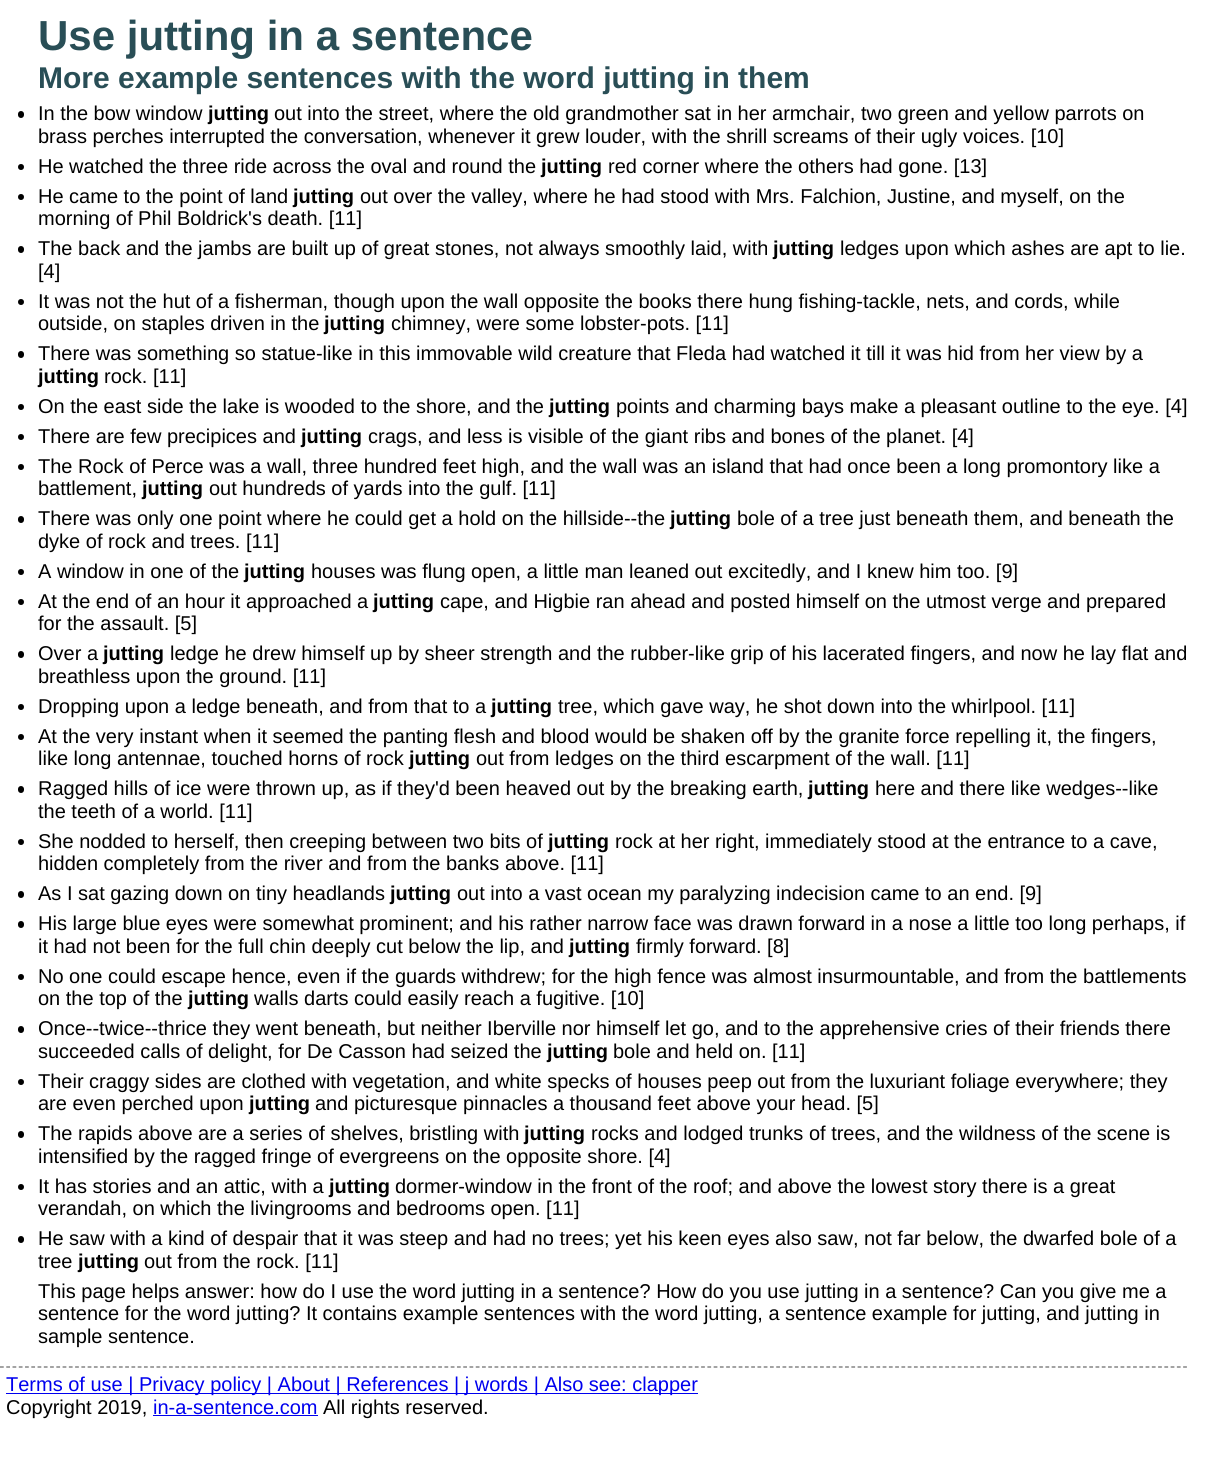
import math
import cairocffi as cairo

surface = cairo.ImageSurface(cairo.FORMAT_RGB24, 1224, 1473)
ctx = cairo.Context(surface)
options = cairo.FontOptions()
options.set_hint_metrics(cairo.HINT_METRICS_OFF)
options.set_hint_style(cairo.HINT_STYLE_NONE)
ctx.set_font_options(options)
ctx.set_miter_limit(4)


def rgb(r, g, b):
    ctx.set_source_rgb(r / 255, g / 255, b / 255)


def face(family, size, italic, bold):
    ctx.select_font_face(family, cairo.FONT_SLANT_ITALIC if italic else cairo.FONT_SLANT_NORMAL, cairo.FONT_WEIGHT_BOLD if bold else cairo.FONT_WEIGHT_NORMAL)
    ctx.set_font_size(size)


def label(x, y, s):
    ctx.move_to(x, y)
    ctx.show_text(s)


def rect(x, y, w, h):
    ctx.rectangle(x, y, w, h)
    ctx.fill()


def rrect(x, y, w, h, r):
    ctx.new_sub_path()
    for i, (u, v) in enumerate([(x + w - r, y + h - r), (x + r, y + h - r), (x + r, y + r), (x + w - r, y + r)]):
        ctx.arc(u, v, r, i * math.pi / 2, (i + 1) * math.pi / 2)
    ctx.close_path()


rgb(255, 255, 255)
ctx.paint()
face('Liberation Sans', 42, 0, 1)
rgb(41, 78, 86)
label(38, 50, 'Use jutting in a sentence')
face('Liberation Sans', 30, 0, 1)
label(38, 88, 'More example sentences with the word jutting in them')
rgb(0, 0, 0)
rrect(18, 111, 6, 7, 3)
ctx.fill()
face('Liberation Sans', 20, 0, 0)
label(38, 120, 'In the bow window')
face('Liberation Sans', 20, 0, 1)
label(208, 120, 'jutting')
face('Liberation Sans', 20, 0, 0)
label(274, 120, 'out into the street, where the old grandmother sat in her armchair, two green and yellow parrots on')
label(38, 143, 'brass perches interrupted the conversation, whenever it grew louder, with the shrill screams of their ugly voices. [10]')
ctx.new_path()
ctx.arc(21, 167, 3, 0, 2 * math.pi)
ctx.fill()
label(38, 173, 'He watched the three ride across the oval and round the')
face('Liberation Sans', 20, 0, 1)
label(541, 173, 'jutting')
face('Liberation Sans', 20, 0, 0)
label(608, 173, 'red corner where the others had gone. [13]')
ctx.new_path()
ctx.arc(21, 197, 3, 0, 2 * math.pi)
ctx.fill()
label(38, 203, 'He came to the point of land')
face('Liberation Sans', 20, 0, 1)
label(293, 203, 'jutting')
face('Liberation Sans', 20, 0, 0)
label(360, 203, 'out over the valley, where he had stood with Mrs. Falchion, Justine, and myself, on the')
label(38, 225, 'morning of Phil Boldrick\'s death. [11]')
rrect(18, 246, 6, 7, 3)
ctx.fill()
label(38, 255, 'The back and the jambs are built up of great stones, not always smoothly laid, with')
face('Liberation Sans', 20, 0, 1)
label(773, 255, 'jutting')
face('Liberation Sans', 20, 0, 0)
label(840, 255, 'ledges upon which ashes are apt to lie.')
label(38, 278, '[4]')
ctx.new_path()
ctx.arc(21, 302, 3, 0, 2 * math.pi)
ctx.fill()
label(38, 308, 'It was not the hut of a fisherman, though upon the wall opposite the books there hung fishing-tackle, nets, and cords, while')
label(38, 330, 'outside, on staples driven in the')
face('Liberation Sans', 20, 0, 1)
label(324, 330, 'jutting')
face('Liberation Sans', 20, 0, 0)
label(391, 330, 'chimney, were some lobster-pots. [11]')
rrect(18, 351, 6, 7, 3)
ctx.fill()
label(38, 360, 'There was something so statue-like in this immovable wild creature that Fleda had watched it till it was hid from her view by a')
face('Liberation Sans', 20, 0, 1)
label(38, 383, 'jutting')
face('Liberation Sans', 20, 0, 0)
label(104, 383, 'rock. [11]')
ctx.new_path()
ctx.arc(21, 407, 3, 0, 2 * math.pi)
ctx.fill()
label(38, 413, 'On the east side the lake is wooded to the shore, and the')
face('Liberation Sans', 20, 0, 1)
label(549, 413, 'jutting')
face('Liberation Sans', 20, 0, 0)
label(616, 413, 'points and charming bays make a pleasant outline to the eye. [4]')
ctx.new_path()
ctx.arc(21, 437, 3, 0, 2 * math.pi)
ctx.fill()
label(38, 443, 'There are few precipices and')
face('Liberation Sans', 20, 0, 1)
label(301, 443, 'jutting')
face('Liberation Sans', 20, 0, 0)
label(368, 443, 'crags, and less is visible of the giant ribs and bones of the planet. [4]')
ctx.new_path()
ctx.arc(21, 467, 3, 0, 2 * math.pi)
ctx.fill()
label(38, 473, 'The Rock of Perce was a wall, three hundred feet high, and the wall was an island that had once been a long promontory like a')
label(38, 495, 'battlement,')
face('Liberation Sans', 20, 0, 1)
label(142, 495, 'jutting')
face('Liberation Sans', 20, 0, 0)
label(209, 495, 'out hundreds of yards into the gulf. [11]')
rrect(18, 516, 6, 7, 3)
ctx.fill()
label(38, 525, 'There was only one point where he could get a hold on the hillside--the')
face('Liberation Sans', 20, 0, 1)
label(670, 525, 'jutting')
face('Liberation Sans', 20, 0, 0)
label(737, 525, 'bole of a tree just beneath them, and beneath the')
label(38, 548, 'dyke of rock and trees. [11]')
ctx.new_path()
ctx.arc(21, 572, 3, 0, 2 * math.pi)
ctx.fill()
label(38, 578, 'A window in one of the')
face('Liberation Sans', 20, 0, 1)
label(244, 578, 'jutting')
face('Liberation Sans', 20, 0, 0)
label(311, 578, 'houses was flung open, a little man leaned out excitedly, and I knew him too. [9]')
ctx.new_path()
ctx.arc(21, 602, 3, 0, 2 * math.pi)
ctx.fill()
label(38, 608, 'At the end of an hour it approached a')
face('Liberation Sans', 20, 0, 1)
label(373, 608, 'jutting')
face('Liberation Sans', 20, 0, 0)
label(440, 608, 'cape, and Higbie ran ahead and posted himself on the utmost verge and prepared')
label(38, 630, 'for the assault. [5]')
rrect(18, 651, 6, 7, 3)
ctx.fill()
label(38, 660, 'Over a')
face('Liberation Sans', 20, 0, 1)
label(103, 660, 'jutting')
face('Liberation Sans', 20, 0, 0)
label(170, 660, 'ledge he drew himself up by sheer strength and the rubber-like grip of his lacerated fingers, and now he lay flat and')
label(38, 683, 'breathless upon the ground. [11]')
ctx.new_path()
ctx.arc(21, 707, 3, 0, 2 * math.pi)
ctx.fill()
label(38, 713, 'Dropping upon a ledge beneath, and from that to a')
face('Liberation Sans', 20, 0, 1)
label(491, 713, 'jutting')
face('Liberation Sans', 20, 0, 0)
label(558, 713, 'tree, which gave way, he shot down into the whirlpool. [11]')
ctx.new_path()
ctx.arc(21, 737, 3, 0, 2 * math.pi)
ctx.fill()
label(38, 743, 'At the very instant when it seemed the panting flesh and blood would be shaken off by the granite force repelling it, the fingers,')
label(38, 765, 'like long antennae, touched horns of rock')
face('Liberation Sans', 20, 0, 1)
label(409, 765, 'jutting')
face('Liberation Sans', 20, 0, 0)
label(476, 765, 'out from ledges on the third escarpment of the wall. [11]')
rrect(18, 786, 6, 7, 3)
ctx.fill()
label(38, 795, 'Ragged hills of ice were thrown up, as if they\'d been heaved out by the breaking earth,')
face('Liberation Sans', 20, 0, 1)
label(808, 795, 'jutting')
face('Liberation Sans', 20, 0, 0)
label(875, 795, 'here and there like wedges--like')
label(38, 818, 'the teeth of a world. [11]')
ctx.new_path()
ctx.arc(21, 842, 3, 0, 2 * math.pi)
ctx.fill()
label(38, 848, 'She nodded to herself, then creeping between two bits of')
face('Liberation Sans', 20, 0, 1)
label(548, 848, 'jutting')
face('Liberation Sans', 20, 0, 0)
label(615, 848, 'rock at her right, immediately stood at the entrance to a cave,')
label(38, 870, 'hidden completely from the river and from the banks above. [11]')
rrect(18, 891, 6, 7, 3)
ctx.fill()
label(38, 900, 'As I sat gazing down on tiny headlands')
face('Liberation Sans', 20, 0, 1)
label(390, 900, 'jutting')
face('Liberation Sans', 20, 0, 0)
label(457, 900, 'out into a vast ocean my paralyzing indecision came to an end. [9]')
rrect(18, 921, 6, 7, 3)
ctx.fill()
label(38, 930, 'His large blue eyes were somewhat prominent; and his rather narrow face was drawn forward in a nose a little too long perhaps, if')
label(38, 953, 'it had not been for the full chin deeply cut below the lip, and')
face('Liberation Sans', 20, 0, 1)
label(569, 953, 'jutting')
face('Liberation Sans', 20, 0, 0)
label(636, 953, 'firmly forward. [8]')
ctx.new_path()
ctx.arc(21, 977, 3, 0, 2 * math.pi)
ctx.fill()
label(38, 983, 'No one could escape hence, even if the guards withdrew; for the high fence was almost insurmountable, and from the battlements')
label(38, 1005, 'on the top of the')
face('Liberation Sans', 20, 0, 1)
label(188, 1005, 'jutting')
face('Liberation Sans', 20, 0, 0)
label(254, 1005, 'walls darts could easily reach a fugitive. [10]')
rrect(18, 1026, 6, 7, 3)
ctx.fill()
label(38, 1035, 'Once--twice--thrice they went beneath, but neither Iberville nor himself let go, and to the apprehensive cries of their friends there')
label(38, 1058, 'succeeded calls of delight, for De Casson had seized the')
face('Liberation Sans', 20, 0, 1)
label(547, 1058, 'jutting')
face('Liberation Sans', 20, 0, 0)
label(613, 1058, 'bole and held on. [11]')
ctx.new_path()
ctx.arc(21, 1082, 3, 0, 2 * math.pi)
ctx.fill()
label(38, 1088, 'Their craggy sides are clothed with vegetation, and white specks of houses peep out from the luxuriant foliage everywhere; they')
label(38, 1110, 'are even perched upon')
face('Liberation Sans', 20, 0, 1)
label(249, 1110, 'jutting')
face('Liberation Sans', 20, 0, 0)
label(315, 1110, 'and picturesque pinnacles a thousand feet above your head. [5]')
rrect(18, 1131, 6, 7, 3)
ctx.fill()
label(38, 1140, 'The rapids above are a series of shelves, bristling with')
face('Liberation Sans', 20, 0, 1)
label(524, 1140, 'jutting')
face('Liberation Sans', 20, 0, 0)
label(591, 1140, 'rocks and lodged trunks of trees, and the wildness of the scene is')
label(38, 1163, 'intensified by the ragged fringe of evergreens on the opposite shore. [4]')
ctx.new_path()
ctx.arc(21, 1187, 3, 0, 2 * math.pi)
ctx.fill()
label(38, 1193, 'It has stories and an attic, with a')
face('Liberation Sans', 20, 0, 1)
label(329, 1193, 'jutting')
face('Liberation Sans', 20, 0, 0)
label(395, 1193, 'dormer-window in the front of the roof; and above the lowest story there is a great')
label(38, 1215, 'verandah, on which the livingrooms and bedrooms open. [11]')
rrect(18, 1236, 6, 7, 3)
ctx.fill()
label(38, 1245, 'He saw with a kind of despair that it was steep and had no trees; yet his keen eyes also saw, not far below, the dwarfed bole of a')
label(38, 1268, 'tree')
face('Liberation Sans', 20, 0, 1)
label(78, 1268, 'jutting')
face('Liberation Sans', 20, 0, 0)
label(144, 1268, 'out from the rock. [11]')
label(38, 1298, 'This page helps answer: how do I use the word jutting in a sentence? How do you use jutting in a sentence? Can you give me a')
label(38, 1320, 'sentence for the word jutting? It contains example sentences with the word jutting, a sentence example for jutting, and jutting in')
label(38, 1343, 'sample sentence.')
ctx.new_path()
ctx.move_to(0, 1367)
ctx.line_to(1187.5, 1367)
rgb(102, 102, 102)
ctx.set_line_width(1.2)
ctx.set_dash([3.75, 2.51])
ctx.stroke()
rgb(0, 0, 238)
rect(6, 1393, 692, 1)
label(6, 1391, 'Terms of use | Privacy policy | About | References | j words | Also see: clapper')
rgb(0, 0, 0)
label(6, 1414, 'Copyright 2019,')
rgb(0, 0, 238)
label(153, 1414, 'in-a-sentence.com')
rect(153, 1415, 165, 1)
rgb(0, 0, 0)
label(323, 1414, 'All rights reserved.')
surface.write_to_png('render.png')
